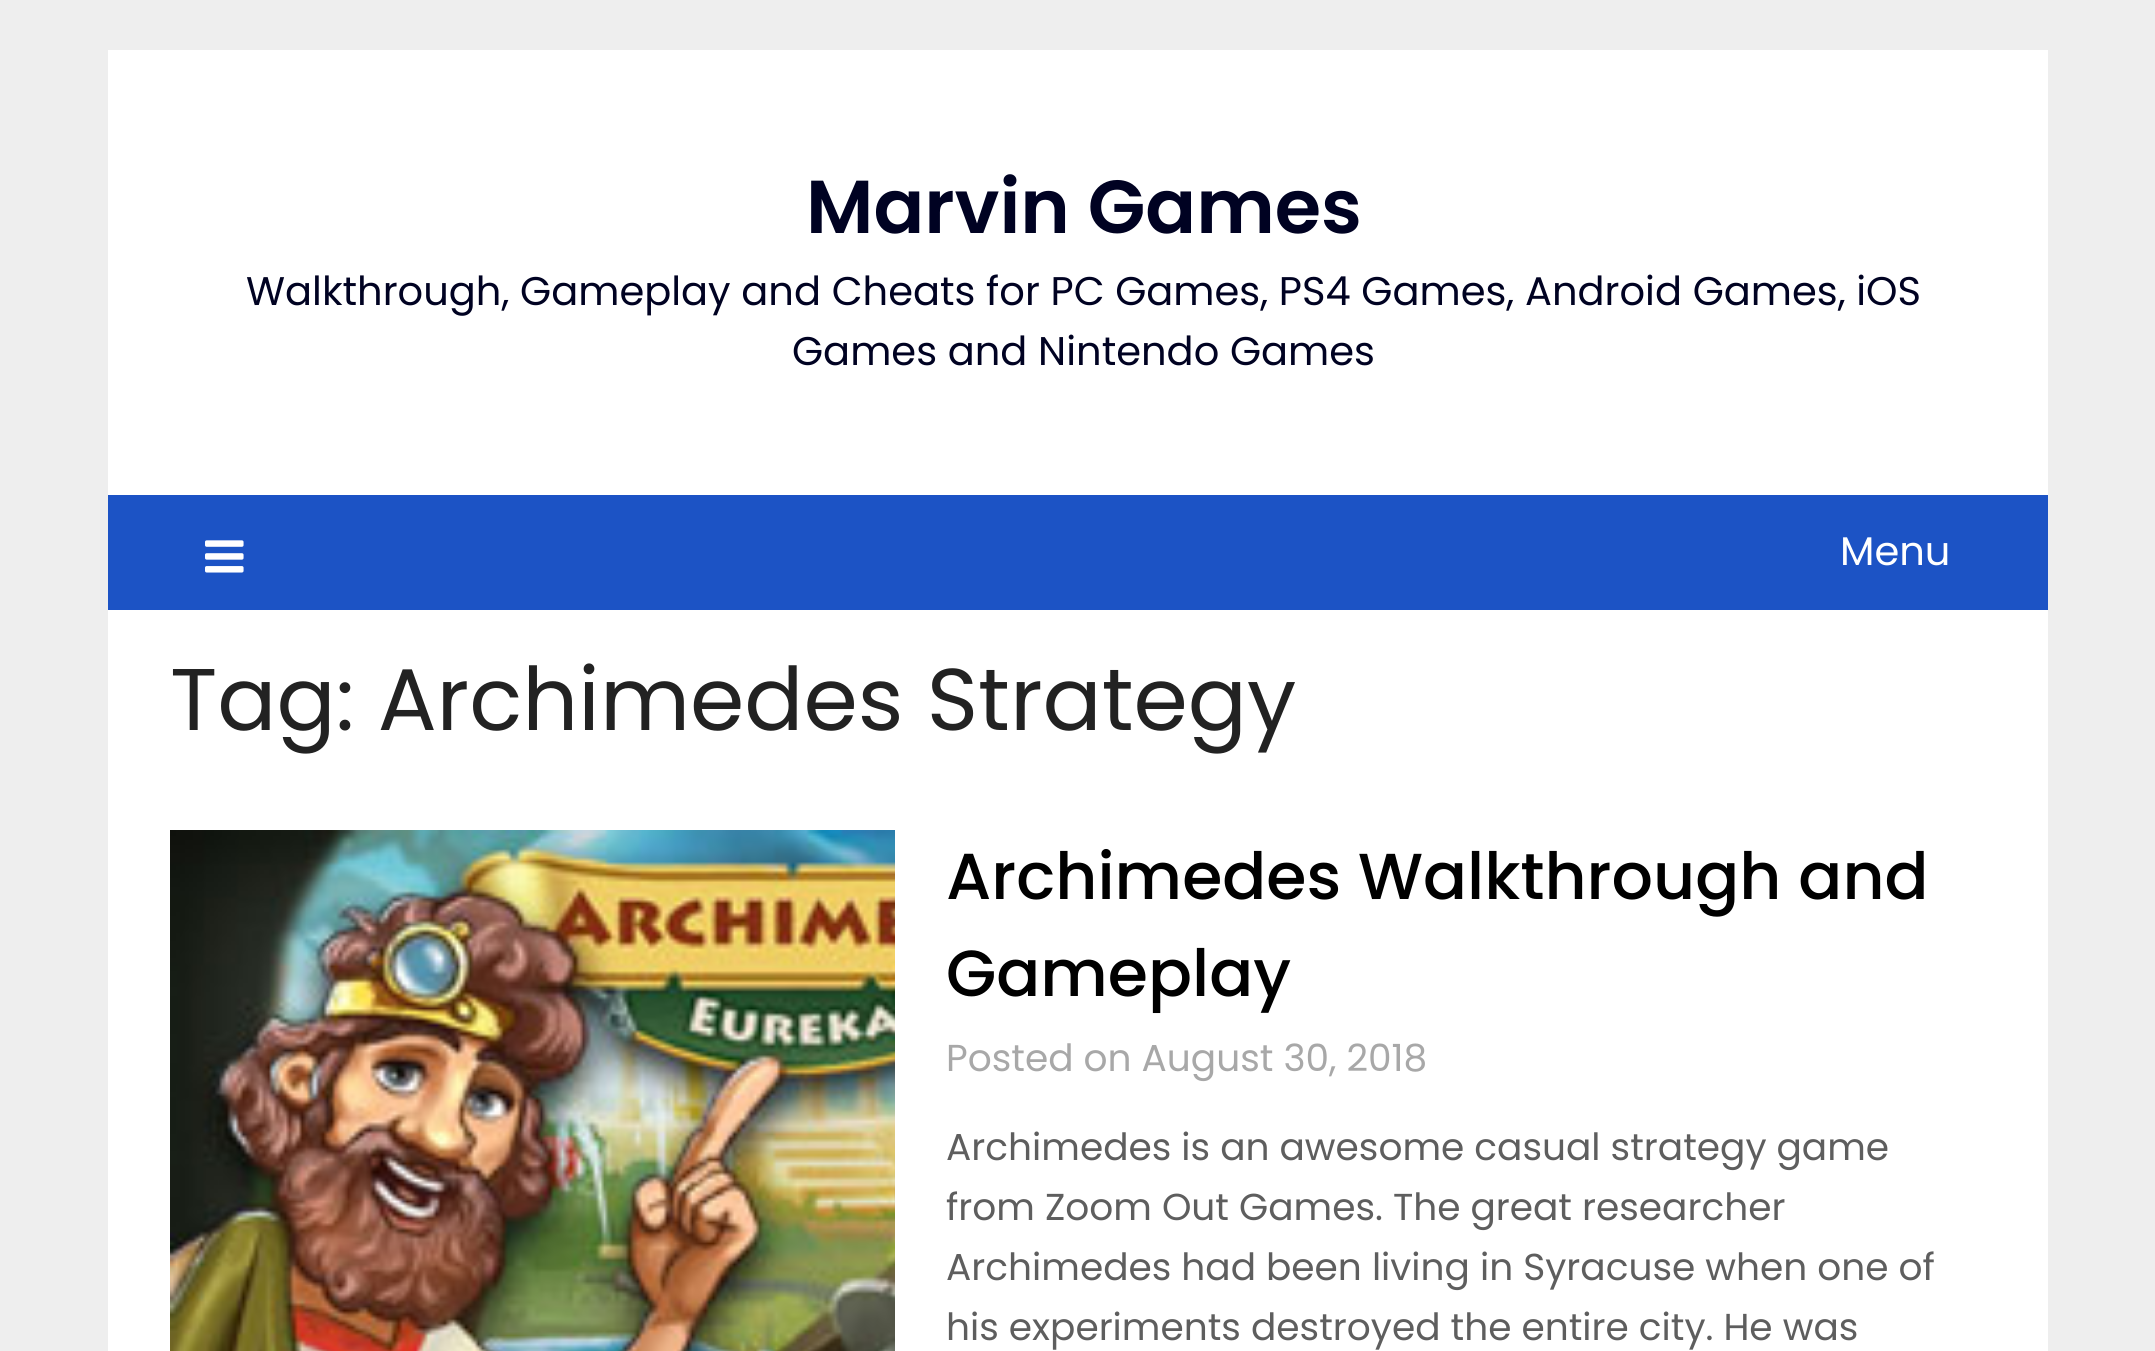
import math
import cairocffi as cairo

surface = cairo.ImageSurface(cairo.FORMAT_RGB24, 2155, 1351)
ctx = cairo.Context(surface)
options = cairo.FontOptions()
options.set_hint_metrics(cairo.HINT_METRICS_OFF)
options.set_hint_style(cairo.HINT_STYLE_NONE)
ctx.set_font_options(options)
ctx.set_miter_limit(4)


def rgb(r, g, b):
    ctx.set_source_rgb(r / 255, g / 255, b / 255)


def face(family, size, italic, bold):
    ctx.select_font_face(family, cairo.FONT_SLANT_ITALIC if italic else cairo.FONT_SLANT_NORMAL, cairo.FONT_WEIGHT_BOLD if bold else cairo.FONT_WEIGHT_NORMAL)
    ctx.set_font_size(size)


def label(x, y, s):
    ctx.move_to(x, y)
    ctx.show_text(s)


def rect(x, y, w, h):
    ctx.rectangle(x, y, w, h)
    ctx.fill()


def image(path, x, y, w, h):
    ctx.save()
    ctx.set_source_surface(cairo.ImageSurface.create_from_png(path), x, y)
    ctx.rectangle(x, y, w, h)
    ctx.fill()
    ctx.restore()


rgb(238, 238, 238)
ctx.paint()
rgb(255, 255, 255)
rect(108, 50, 1940, 445)
face('Poppins SemiBold', 75, 0, 0)
rgb(0, 2, 34)
label(806, 233, 'Marvin Games')
face('Poppins', 40, 0, 0)
label(246, 305, 'Walkthrough, Gameplay and Cheats for PC Games, PS4 Games, Android Games, iOS')
label(792, 365, 'Games and Nintendo Games')
rgb(28, 83, 197)
rect(108, 495, 1940, 115)
image('image0.png', 205, 540, 39, 33)
rgb(255, 255, 255)
label(1840, 565, 'Menu')
rect(108, 610, 1940, 741)
face('Poppins', 87.5, 0, 0)
rgb(34, 34, 34)
label(170, 730, 'Tag: Archimedes Strategy')
image('image1.png', 170, 830, 725, 521)
face('Poppins Medium', 65, 0, 0)
rgb(0, 0, 0)
label(946, 899, 'Archimedes Walkthrough and')
label(946, 996, 'Gameplay')
face('Poppins', 37.5, 0, 0)
rgb(168, 168, 168)
label(946, 1071, 'Posted on August 30, 2018')
rgb(94, 94, 94)
label(946, 1160, 'Archimedes is an awesome casual strategy game')
label(946, 1220, 'from Zoom Out Games. The great researcher')
label(946, 1280, 'Archimedes had been living in Syracuse when one of')
label(946, 1340, 'his experiments destroyed the entire city. He was')
surface.write_to_png('render.png')
